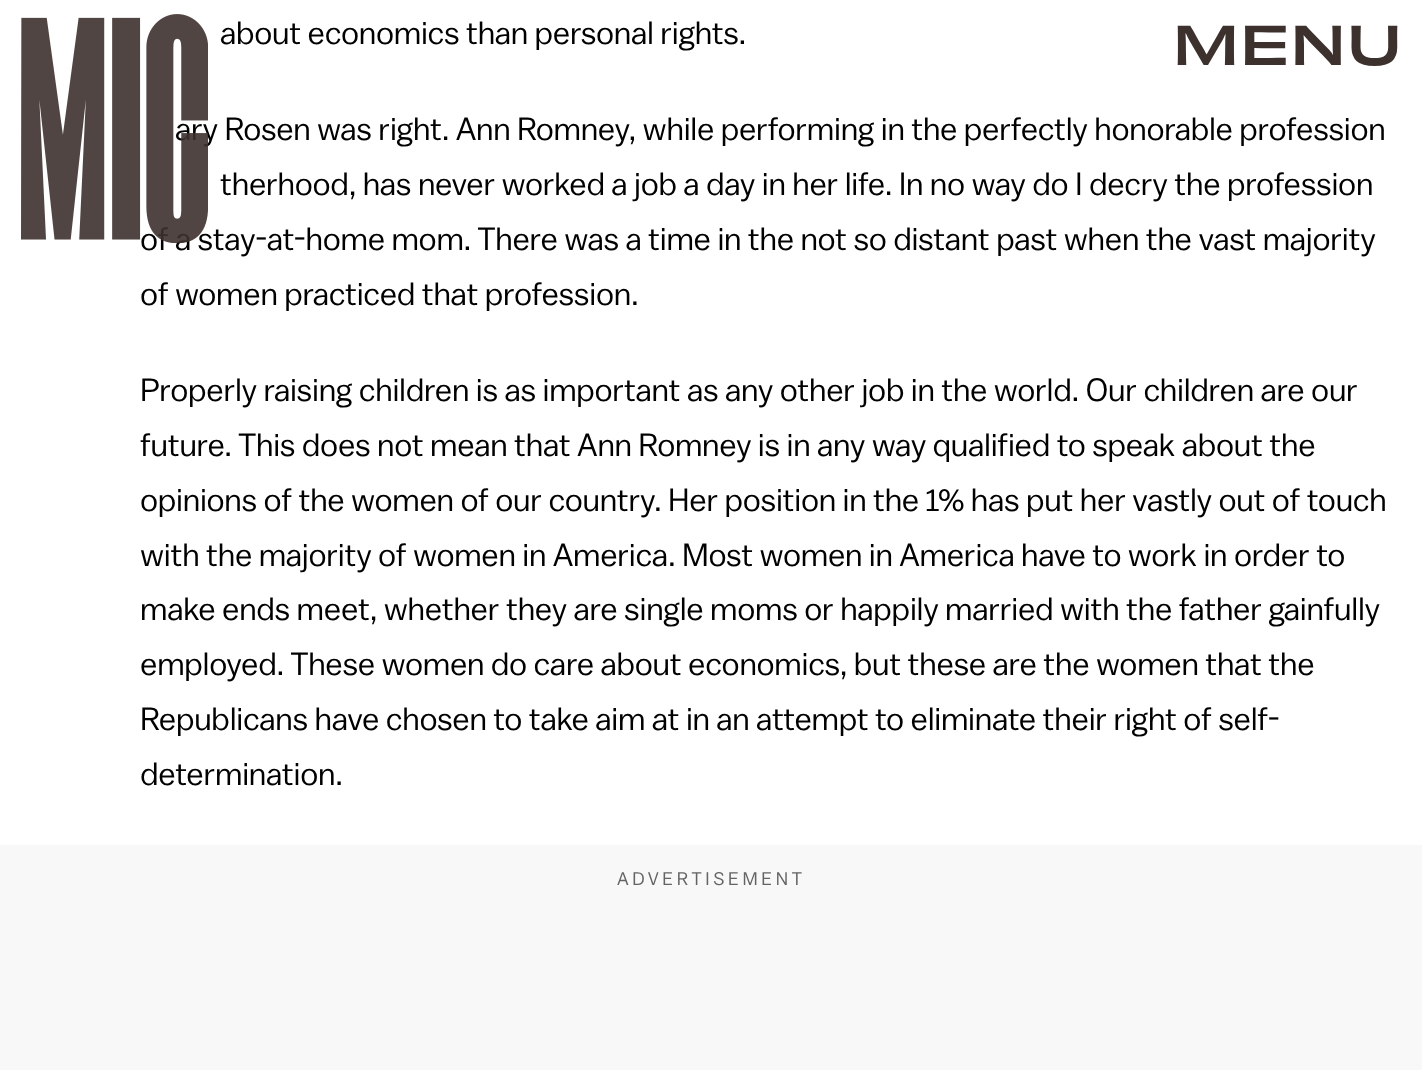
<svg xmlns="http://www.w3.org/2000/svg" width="1422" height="1070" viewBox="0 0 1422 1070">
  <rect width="100%" height="100%" fill="#fff"/>
  <path d="M0 845h1422v225H0z" fill="#f8f8f8"/>
  <g font-family="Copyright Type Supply" font-size="32.2" letter-spacing="-0.28" fill="#000">
    <text x="220" y="44">about economics than personal rights.</text>
    <text x="175" y="140">ary Rosen was right. Ann Romney, while performing in the perfectly honorable profession</text>
    <text x="220" y="195">therhood, has never worked a job a day in her life. In no way do I decry the profession</text>
    <text x="140" y="250">of a stay-at-home mom. There was a time in the not so distant past when the vast majority</text>
    <text x="140" y="305">of women practiced that profession.</text>
    <text x="140" y="401">Properly raising children is as important as any other job in the world. Our children are our</text>
    <text x="140" y="456">future. This does not mean that Ann Romney is in any way qualified to speak about the</text>
    <text x="140" y="511">opinions of the women of our country. Her position in the 1% has put her vastly out of touch</text>
    <text x="140" y="566">with the majority of women in America. Most women in America have to work in order to</text>
    <text x="140" y="620">make ends meet, whether they are single moms or happily married with the father gainfully</text>
    <text x="140" y="675">employed. These women do care about economics, but these are the women that the</text>
    <text x="140" y="730">Republicans have chosen to take aim at in an attempt to eliminate their right of self-</text>
    <text x="140" y="785">determination.</text>
  </g>
  <text x="617" y="885" font-family="Copyright Type Supply" font-size="18.25" letter-spacing="3.6" fill="#636363">ADVERTISEMENT</text>
  <image x="21" y="14" width="187" height="229" href="img/1.png"/>
  <text x="1172" y="65" font-family="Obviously" font-size="52.5" font-weight="600" letter-spacing="-0.5" fill="#3d312e">MENU</text>
</svg>
